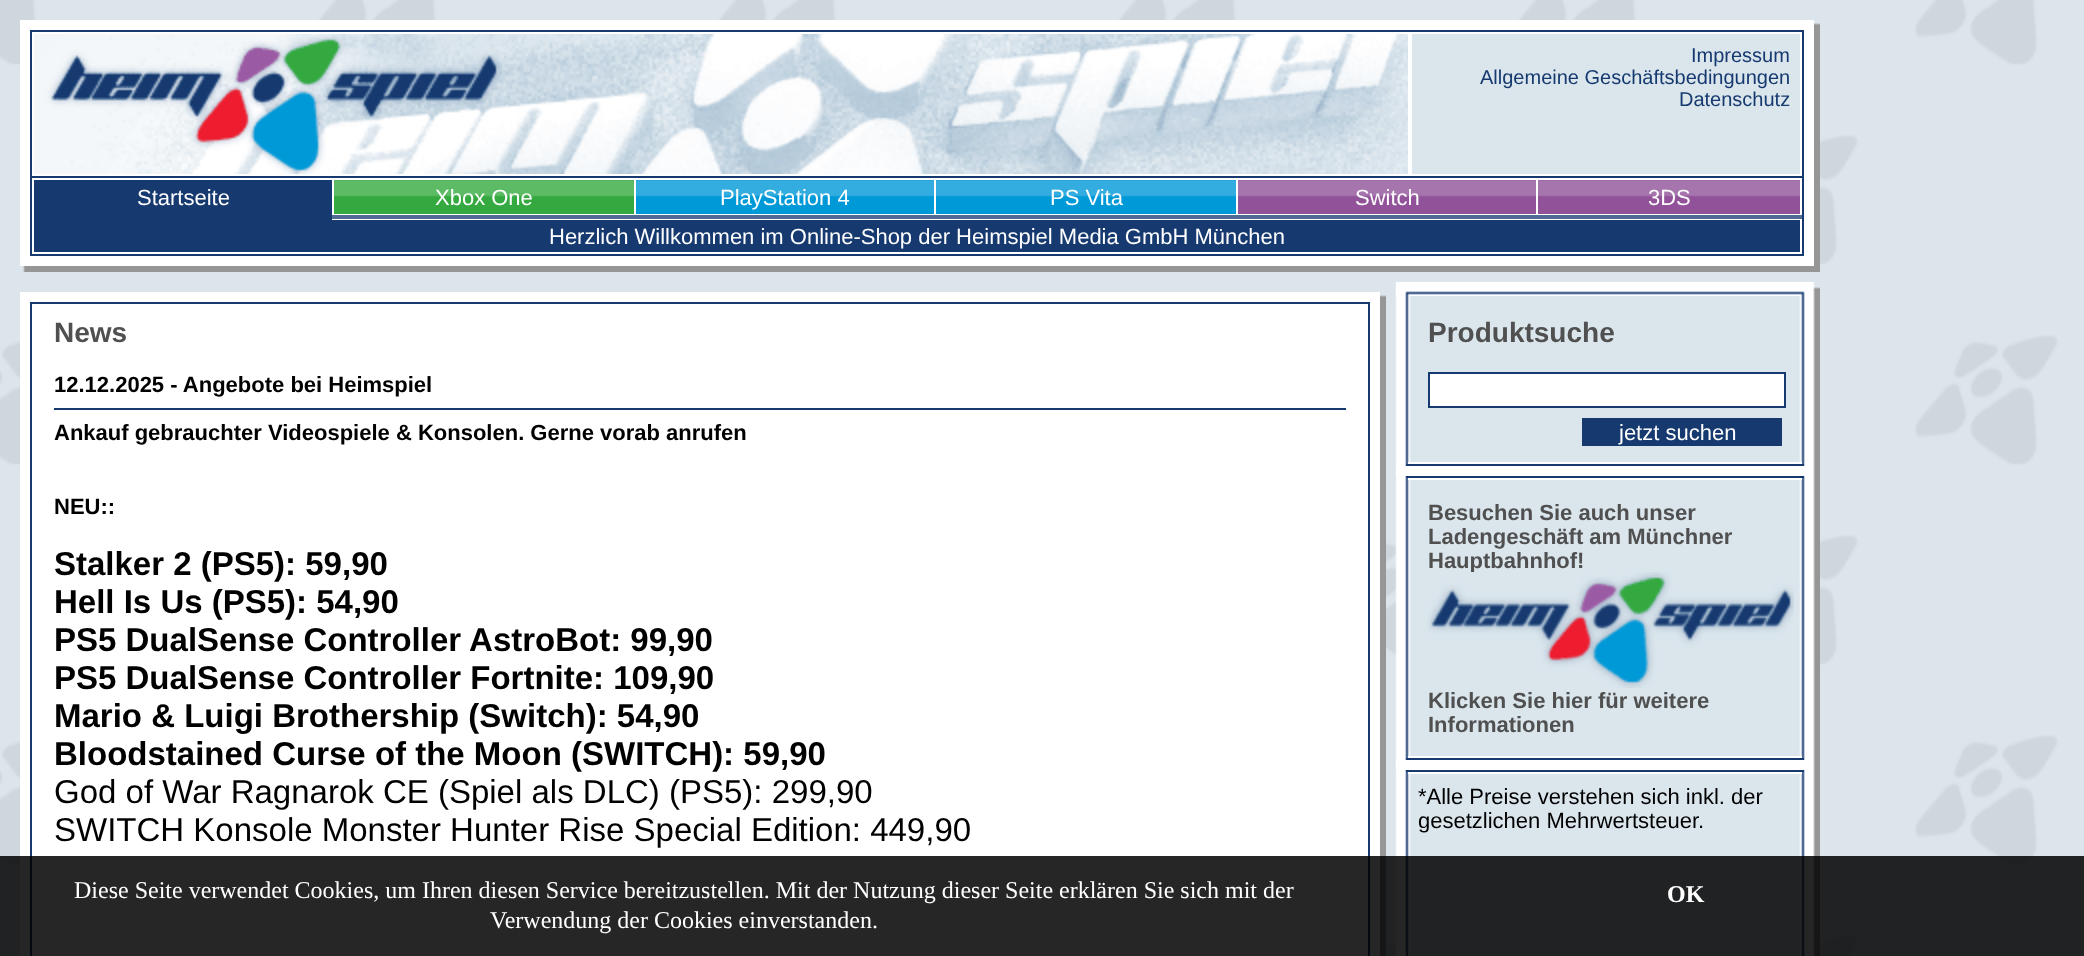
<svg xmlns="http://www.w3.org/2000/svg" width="2084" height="956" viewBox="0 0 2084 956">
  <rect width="100%" height="100%" fill="#fff"/>
  <image x="0" y="0" width="2084" height="956" href="img/1.png"/>
  <path d="M20 20h1794v246H20z" fill="#fff"/>
  <path d="M30 30h1774v2H30z" fill="#163a70"/>
  <path d="M1802 30h2v146H1802z" fill="#163a70"/>
  <path d="M30 30h2v146H30z" fill="#163a70"/>
  <image x="34" y="34" width="1374" height="140" href="img/2.png"/>
  <path d="M1412 34h388v140H1412z" fill="#dae5ec"/>
  <path d="M31 177h1772v78H31z" fill="none" stroke="#163a70" stroke-width="2"/>
  <path d="M34 180h298v34H34z" fill="#163a70"/>
  <image x="334" y="180" width="300" height="34" href="img/3.png"/>
  <image x="636" y="180" width="298" height="34" href="img/4.png"/>
  <image x="936" y="180" width="300" height="34" href="img/5.png"/>
  <image x="1238" y="180" width="298" height="34" href="img/6.png"/>
  <image x="1538" y="180" width="262" height="34" href="img/7.png"/>
  <path d="M32 214h300v6H32z" fill="#163a70"/>
  <path d="M32 214h2v6H32z" fill="#fff"/>
  <path d="M332 215h1470v4H332z" fill="#506b93"/>
  <path d="M34 220h1766v32H34z" fill="#163a70"/>
  <path d="M1814 20h6v246H1814z" fill="#969696"/>
  <image x="1814" y="20" width="6" height="5" href="img/8.png"/>
  <path d="M20 266h1800v6H20z" fill="#969696"/>
  <image x="20" y="266" width="5" height="6" href="img/9.png"/>
  <image x="1395" y="282" width="425" height="674" href="img/10.png"/>
  <path d="M1380 297h6v659H1380z" fill="#969696"/>
  <image x="1380" y="292" width="6" height="5" href="img/11.png"/>
  <path d="M20 292h1360v664H20z" fill="#fff"/>
  <path d="M31 303h1338v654H31z" fill="none" stroke="#163a70" stroke-width="2"/>
  <path d="M54 408h1292v2H54z" fill="#163a70"/>
  <image x="1396" y="282" width="424" height="14" href="img/12.png"/>
  <path d="M1406 464h398v2H1406z" fill="#163a70"/>
  <path d="M1408 462h394v2H1408z" fill="#fff"/>
  <path d="M1429 373h356v34H1429z" fill="#fff" stroke="#163a70" stroke-width="2"/>
  <path d="M1582 418h200v28H1582z" fill="#163a70"/>
  <path d="M1396 466h409v10H1396z" fill="#fff"/>
  <path d="M1406 476h398v2H1406z" fill="#163a70"/>
  <path d="M1406 758h398v2H1406z" fill="#163a70"/>
  <path d="M1408 478h394v2H1408z" fill="#fff"/>
  <path d="M1408 756h394v2H1408z" fill="#fff"/>
  <path d="M1396 760h409v10H1396z" fill="#fff"/>
  <path d="M1406 770h398v2H1406z" fill="#163a70"/>
  <path d="M1408 772h394v2H1408z" fill="#fff"/>
  <path d="M0 856h2084v100H0z" fill="#000000d9"/>
  <g font-family="Liberation Sans" font-size="20" fill="#163a70">
    <text x="1691" y="62">Impressum</text>
    <text x="1480" y="84">Allgemeine Geschäftsbedingungen</text>
    <text x="1679" y="106">Datenschutz</text>
  </g>
  <g font-family="Liberation Sans" font-size="22" fill="#fff">
    <text x="137" y="205">Startseite</text>
    <text x="435" y="205">Xbox One</text>
    <text x="720" y="205">PlayStation 4</text>
    <text x="1050" y="205">PS Vita</text>
    <text x="1355" y="205">Switch</text>
    <text x="1648" y="205">3DS</text>
    <text x="549" y="244">Herzlich Willkommen im Online-Shop der Heimspiel Media GmbH München</text>
  </g>
  <text x="54" y="342" font-family="Liberation Sans" font-size="28" font-weight="bold" fill="#505050">News</text>
  <g font-family="Liberation Sans" font-size="22" font-weight="bold" fill="#000">
    <text x="54" y="392">12.12.2025 - Angebote bei Heimspiel</text>
    <text x="54" y="440">Ankauf gebrauchter Videospiele &amp; Konsolen. Gerne vorab anrufen</text>
    <text x="54" y="514">NEU::</text>
  </g>
  <g font-family="Liberation Sans" font-size="33" font-weight="bold" fill="#000">
    <text x="54" y="575">Stalker 2 (PS5): 59,90</text>
    <text x="54" y="613">Hell Is Us (PS5): 54,90</text>
    <text x="54" y="651">PS5 DualSense Controller AstroBot: 99,90</text>
    <text x="54" y="689">PS5 DualSense Controller Fortnite: 109,90</text>
    <text x="54" y="727">Mario &amp; Luigi Brothership (Switch): 54,90</text>
    <text x="54" y="765">Bloodstained Curse of the Moon (SWITCH): 59,90</text>
  </g>
  <g font-family="Liberation Sans" font-size="33" fill="#000">
    <text x="54" y="803">God of War Ragnarok CE (Spiel als DLC) (PS5): 299,90</text>
    <text x="54" y="841">SWITCH Konsole Monster Hunter Rise Special Edition: 449,90</text>
  </g>
  <text x="1428" y="342" font-family="Liberation Sans" font-size="28" font-weight="bold" fill="#505050">Produktsuche</text>
  <text x="1619" y="440" font-family="Liberation Sans" font-size="22" fill="#fff">jetzt suchen</text>
  <g font-family="Liberation Sans" font-size="22" font-weight="bold" fill="#505050">
    <text x="1428" y="520">Besuchen Sie auch unser</text>
    <text x="1428" y="544">Ladengeschäft am Münchner</text>
    <text x="1428" y="568">Hauptbahnhof!</text>
  </g>
  <image x="1428" y="572" width="366" height="116" href="img/13.png"/>
  <g font-family="Liberation Sans" font-size="22" font-weight="bold" fill="#505050">
    <text x="1428" y="708">Klicken Sie hier für weitere</text>
    <text x="1428" y="732">Informationen</text>
  </g>
  <g font-family="Liberation Sans" font-size="22" fill="#000">
    <text x="1418" y="804">*Alle Preise verstehen sich inkl. der</text>
    <text x="1418" y="828">gesetzlichen Mehrwertsteuer.</text>
  </g>
  <text x="74" y="898" font-family="Liberation Serif" font-size="24" fill="#fff">Diese Seite verwendet Cookies, um Ihren diesen Service bereitzustellen. Mit der Nutzung dieser Seite erklären Sie sich mit der</text>
  <text x="1667" y="902" font-family="Liberation Serif" font-size="24" font-weight="bold" fill="#fff">OK</text>
  <text x="490" y="928" font-family="Liberation Serif" font-size="24" fill="#fff">Verwendung der Cookies einverstanden.</text>
</svg>
